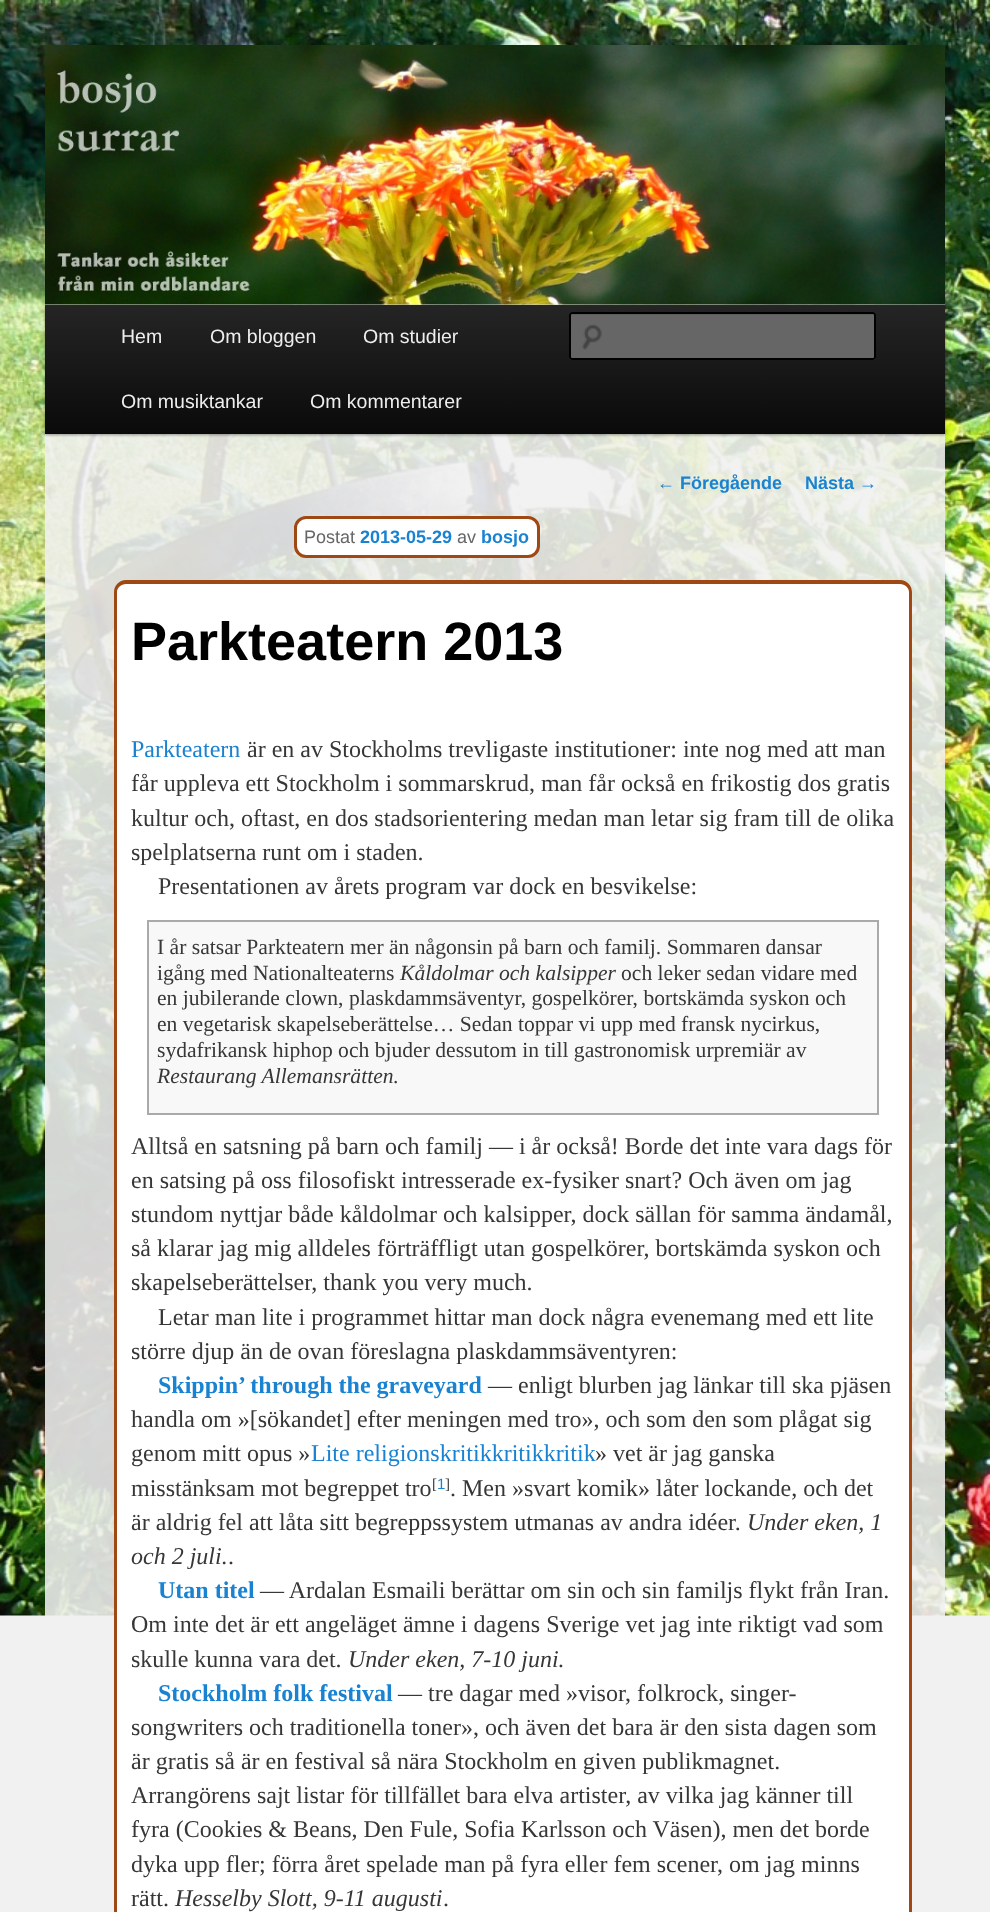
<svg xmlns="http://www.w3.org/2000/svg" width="990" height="1912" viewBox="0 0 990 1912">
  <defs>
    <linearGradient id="g1" gradientUnits="userSpaceOnUse" x1="495" y1="304" x2="495" y2="434"><stop offset="0" stop-color="#252525"/><stop offset="1" stop-color="#0a0a0a"/></linearGradient>
  </defs>
  <rect width="100%" height="100%" fill="#f1f1f1"/>
  <image x="0" y="0" width="990" height="1616" href="img/1.png"/>
  <path d="M45 304h900v1312H45z" fill="#f0f0f0e0"/>
  <path d="M45 306h900v129H45z" fill="#00000066" filter="blur(1.5px)"/>
  <image x="45" y="45" width="900" height="260" href="img/2.png"/>
  <path d="M45 305h900v129H45z" fill="url(#g1)"/>
  <rect x="569" y="312" width="307" height="48" rx="3" fill="#666"/>
  <image x="582" y="324" width="20" height="26" href="img/3.png"/>
  <path d="M572 315H873C874 315 874 316 874 316V359C875 359 875 358 875 358V316C875 315 874 314 874 314H572C571 314 570 315 570 316Z" fill="#5c5c5c"/>
  <rect x="570" y="313" width="305" height="46" rx="2" fill="none" stroke="#000" stroke-width="2"/>
  <path d="M126 581H900C906.5 581 912 586.5 912 593V695H114V593C114 586.5 119.5 581 126 581Z" fill="#fff"/>
  <path d="M126 580H900C907 580 912 586 912 592V694H114V592C114 586 119 580 126 580ZM126 584H900C905 584 909 588 909 592V694H117V592C117 588 121 584 126 584Z" fill="#a04813" fill-rule="evenodd"/>
  <rect x="295.5" y="517.5" width="243" height="39" rx="10.5" fill="#fff" stroke="#a04813" stroke-width="3"/>
  <path d="M117 695h792v1217H117z" fill="#fff"/>
  <path d="M114 694H912V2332C912 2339 907 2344 900 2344H126C119 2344 114 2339 114 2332ZM117 694H909V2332C909 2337 905 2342 900 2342H126C121 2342 117 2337 117 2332Z" fill="#a04813" fill-rule="evenodd"/>
  <path d="M148 921h730v193H148z" fill="#f8f8f8" stroke="#aaa" stroke-width="2"/>
  <g font-family="Liberation Sans" font-size="19.5" fill="#eee">
    <text x="121" y="343">Hem</text>
    <text x="210" y="343">Om bloggen</text>
    <text x="363" y="343">Om studier</text>
    <text x="121" y="408">Om musiktankar</text>
    <text x="310" y="408">Om kommentarer</text>
  </g>
  <text x="657" y="489" font-family="Liberation Sans" font-size="18" fill="#1982d1">←</text>
  <g font-family="Liberation Sans" font-size="18" font-weight="bold" fill="#1982d1">
    <text x="680" y="489">Föregående</text>
    <text x="805" y="489">Nästa</text>
  </g>
  <text x="859" y="489" font-family="Liberation Sans" font-size="18" fill="#1982d1">→</text>
  <text x="304" y="543" font-family="Liberation Sans" font-size="18" fill="#666">Postat</text>
  <text x="360" y="543" font-family="Liberation Sans" font-size="18" font-weight="bold" fill="#1982d1">2013-05-29</text>
  <text x="457" y="543" font-family="Liberation Sans" font-size="18" fill="#666">av</text>
  <text x="481" y="543" font-family="Liberation Sans" font-size="18" font-weight="bold" fill="#1982d1">bosjo</text>
  <text x="131" y="660" font-family="Liberation Sans" font-size="54" font-weight="bold" fill="#000">Parkteatern 2013</text>
  <text x="131" y="757" font-family="Liberation Serif" font-size="24" fill="#1982d1">Parkteatern</text>
  <g font-family="Liberation Serif" font-size="24" fill="#373737">
    <text x="247" y="757">är en av Stockholms trevligaste institutioner: inte nog med att man</text>
    <text x="131" y="791">får uppleva ett Stockholm i sommarskrud, man får också en frikostig dos gratis</text>
    <text x="131" y="826">kultur och, oftast, en dos stadsorientering medan man letar sig fram till de olika</text>
    <text x="131" y="860">spelplatserna runt om i staden.</text>
    <text x="158" y="894">Presentationen av årets program var dock en besvikelse:</text>
  </g>
  <g font-family="Liberation Serif" font-size="21.6" fill="#373737">
    <text x="157" y="954">I år satsar Parkteatern mer än någonsin på barn och familj. Sommaren dansar</text>
    <text x="157" y="980">igång med Nationalteaterns</text>
  </g>
  <text x="400" y="980" font-family="Liberation Serif" font-size="21.6" font-style="italic" fill="#373737">Kåldolmar och kalsipper</text>
  <g font-family="Liberation Serif" font-size="21.6" fill="#373737">
    <text x="621" y="980">och leker sedan vidare med</text>
    <text x="157" y="1005">en jubilerande clown, plaskdammsäventyr, gospelkörer, bortskämda syskon och</text>
    <text x="157" y="1031">en vegetarisk skapelseberättelse… Sedan toppar vi upp med fransk nycirkus,</text>
    <text x="157" y="1057">sydafrikansk hiphop och bjuder dessutom in till gastronomisk urpremiär av</text>
  </g>
  <text x="157" y="1083" font-family="Liberation Serif" font-size="21.6" font-style="italic" fill="#373737">Restaurang Allemansrätten</text>
  <text x="393" y="1083" font-family="Liberation Serif" font-size="21.6" fill="#373737">.</text>
  <g font-family="Liberation Serif" font-size="24" fill="#373737">
    <text x="131" y="1154">Alltså en satsning på barn och familj — i år också! Borde det inte vara dags för</text>
    <text x="131" y="1188">en satsing på oss filosofiskt intresserade ex-fysiker snart? Och även om jag</text>
    <text x="131" y="1222">stundom nyttjar både kåldolmar och kalsipper, dock sällan för samma ändamål,</text>
    <text x="131" y="1256">så klarar jag mig alldeles förträffligt utan gospelkörer, bortskämda syskon och</text>
    <text x="131" y="1290">skapelseberättelser, thank you very much.</text>
    <text x="158" y="1325">Letar man lite i programmet hittar man dock några evenemang med ett lite</text>
    <text x="131" y="1359">större djup än de ovan föreslagna plaskdammsäventyren:</text>
  </g>
  <text x="158" y="1393" font-family="Liberation Serif" font-size="24" font-weight="bold" fill="#1982d1">Skippin’ through the graveyard</text>
  <g font-family="Liberation Serif" font-size="24" fill="#373737">
    <text x="488" y="1393">— enligt blurben jag länkar till ska pjäsen</text>
    <text x="131" y="1427">handla om »[sökandet] efter meningen med tro», och som den som plågat sig</text>
    <text x="131" y="1461">genom mitt opus »</text>
  </g>
  <text x="311" y="1461" font-family="Liberation Serif" font-size="24" fill="#1982d1">Lite religionskritikkritikkritik</text>
  <g font-family="Liberation Serif" font-size="24" fill="#373737">
    <text x="595" y="1461">» vet är jag ganska</text>
    <text x="131" y="1496">misstänksam mot begreppet tro</text>
  </g>
  <text x="432" y="1489" font-family="Liberation Serif" font-size="15" fill="#373737">[</text>
  <text x="437" y="1489" font-family="Liberation Sans" font-size="15" fill="#1982d1">1</text>
  <text x="445" y="1489" font-family="Liberation Serif" font-size="15" fill="#373737">]</text>
  <g font-family="Liberation Serif" font-size="24" fill="#373737">
    <text x="450" y="1496">. Men »svart komik» låter lockande, och det</text>
    <text x="131" y="1530">är aldrig fel att låta sitt begreppssystem utmanas av andra idéer.</text>
  </g>
  <g font-family="Liberation Serif" font-size="24" font-style="italic" fill="#373737">
    <text x="747" y="1530">Under eken, 1</text>
    <text x="131" y="1564">och 2 juli.</text>
  </g>
  <text x="228" y="1564" font-family="Liberation Serif" font-size="24" fill="#373737">.</text>
  <text x="158" y="1598" font-family="Liberation Serif" font-size="24" font-weight="bold" fill="#1982d1">Utan titel</text>
  <g font-family="Liberation Serif" font-size="24" fill="#373737">
    <text x="260" y="1598">— Ardalan Esmaili berättar om sin och sin familjs flykt från Iran.</text>
    <text x="131" y="1632">Om inte det är ett angeläget ämne i dagens Sverige vet jag inte riktigt vad som</text>
    <text x="131" y="1667">skulle kunna vara det.</text>
  </g>
  <text x="348" y="1667" font-family="Liberation Serif" font-size="24" font-style="italic" fill="#373737">Under eken, 7-10 juni.</text>
  <text x="158" y="1701" font-family="Liberation Serif" font-size="24" font-weight="bold" fill="#1982d1">Stockholm folk festival</text>
  <g font-family="Liberation Serif" font-size="24" fill="#373737">
    <text x="398" y="1701">— tre dagar med »visor, folkrock, singer-</text>
    <text x="131" y="1735">songwriters och traditionella toner», och även det bara är den sista dagen som</text>
    <text x="131" y="1769">är gratis så är en festival så nära Stockholm en given publikmagnet.</text>
    <text x="131" y="1803">Arrangörens sajt listar för tillfället bara elva artister, av vilka jag känner till</text>
    <text x="131" y="1837">fyra (Cookies &amp; Beans, Den Fule, Sofia Karlsson och Väsen), men det borde</text>
    <text x="131" y="1872">dyka upp fler; förra året spelade man på fyra eller fem scener, om jag minns</text>
    <text x="131" y="1906">rätt.</text>
  </g>
  <text x="175" y="1906" font-family="Liberation Serif" font-size="24" font-style="italic" fill="#373737">Hesselby Slott, 9-11 augusti</text>
  <text x="443" y="1906" font-family="Liberation Serif" font-size="24" fill="#373737">.</text>
</svg>
